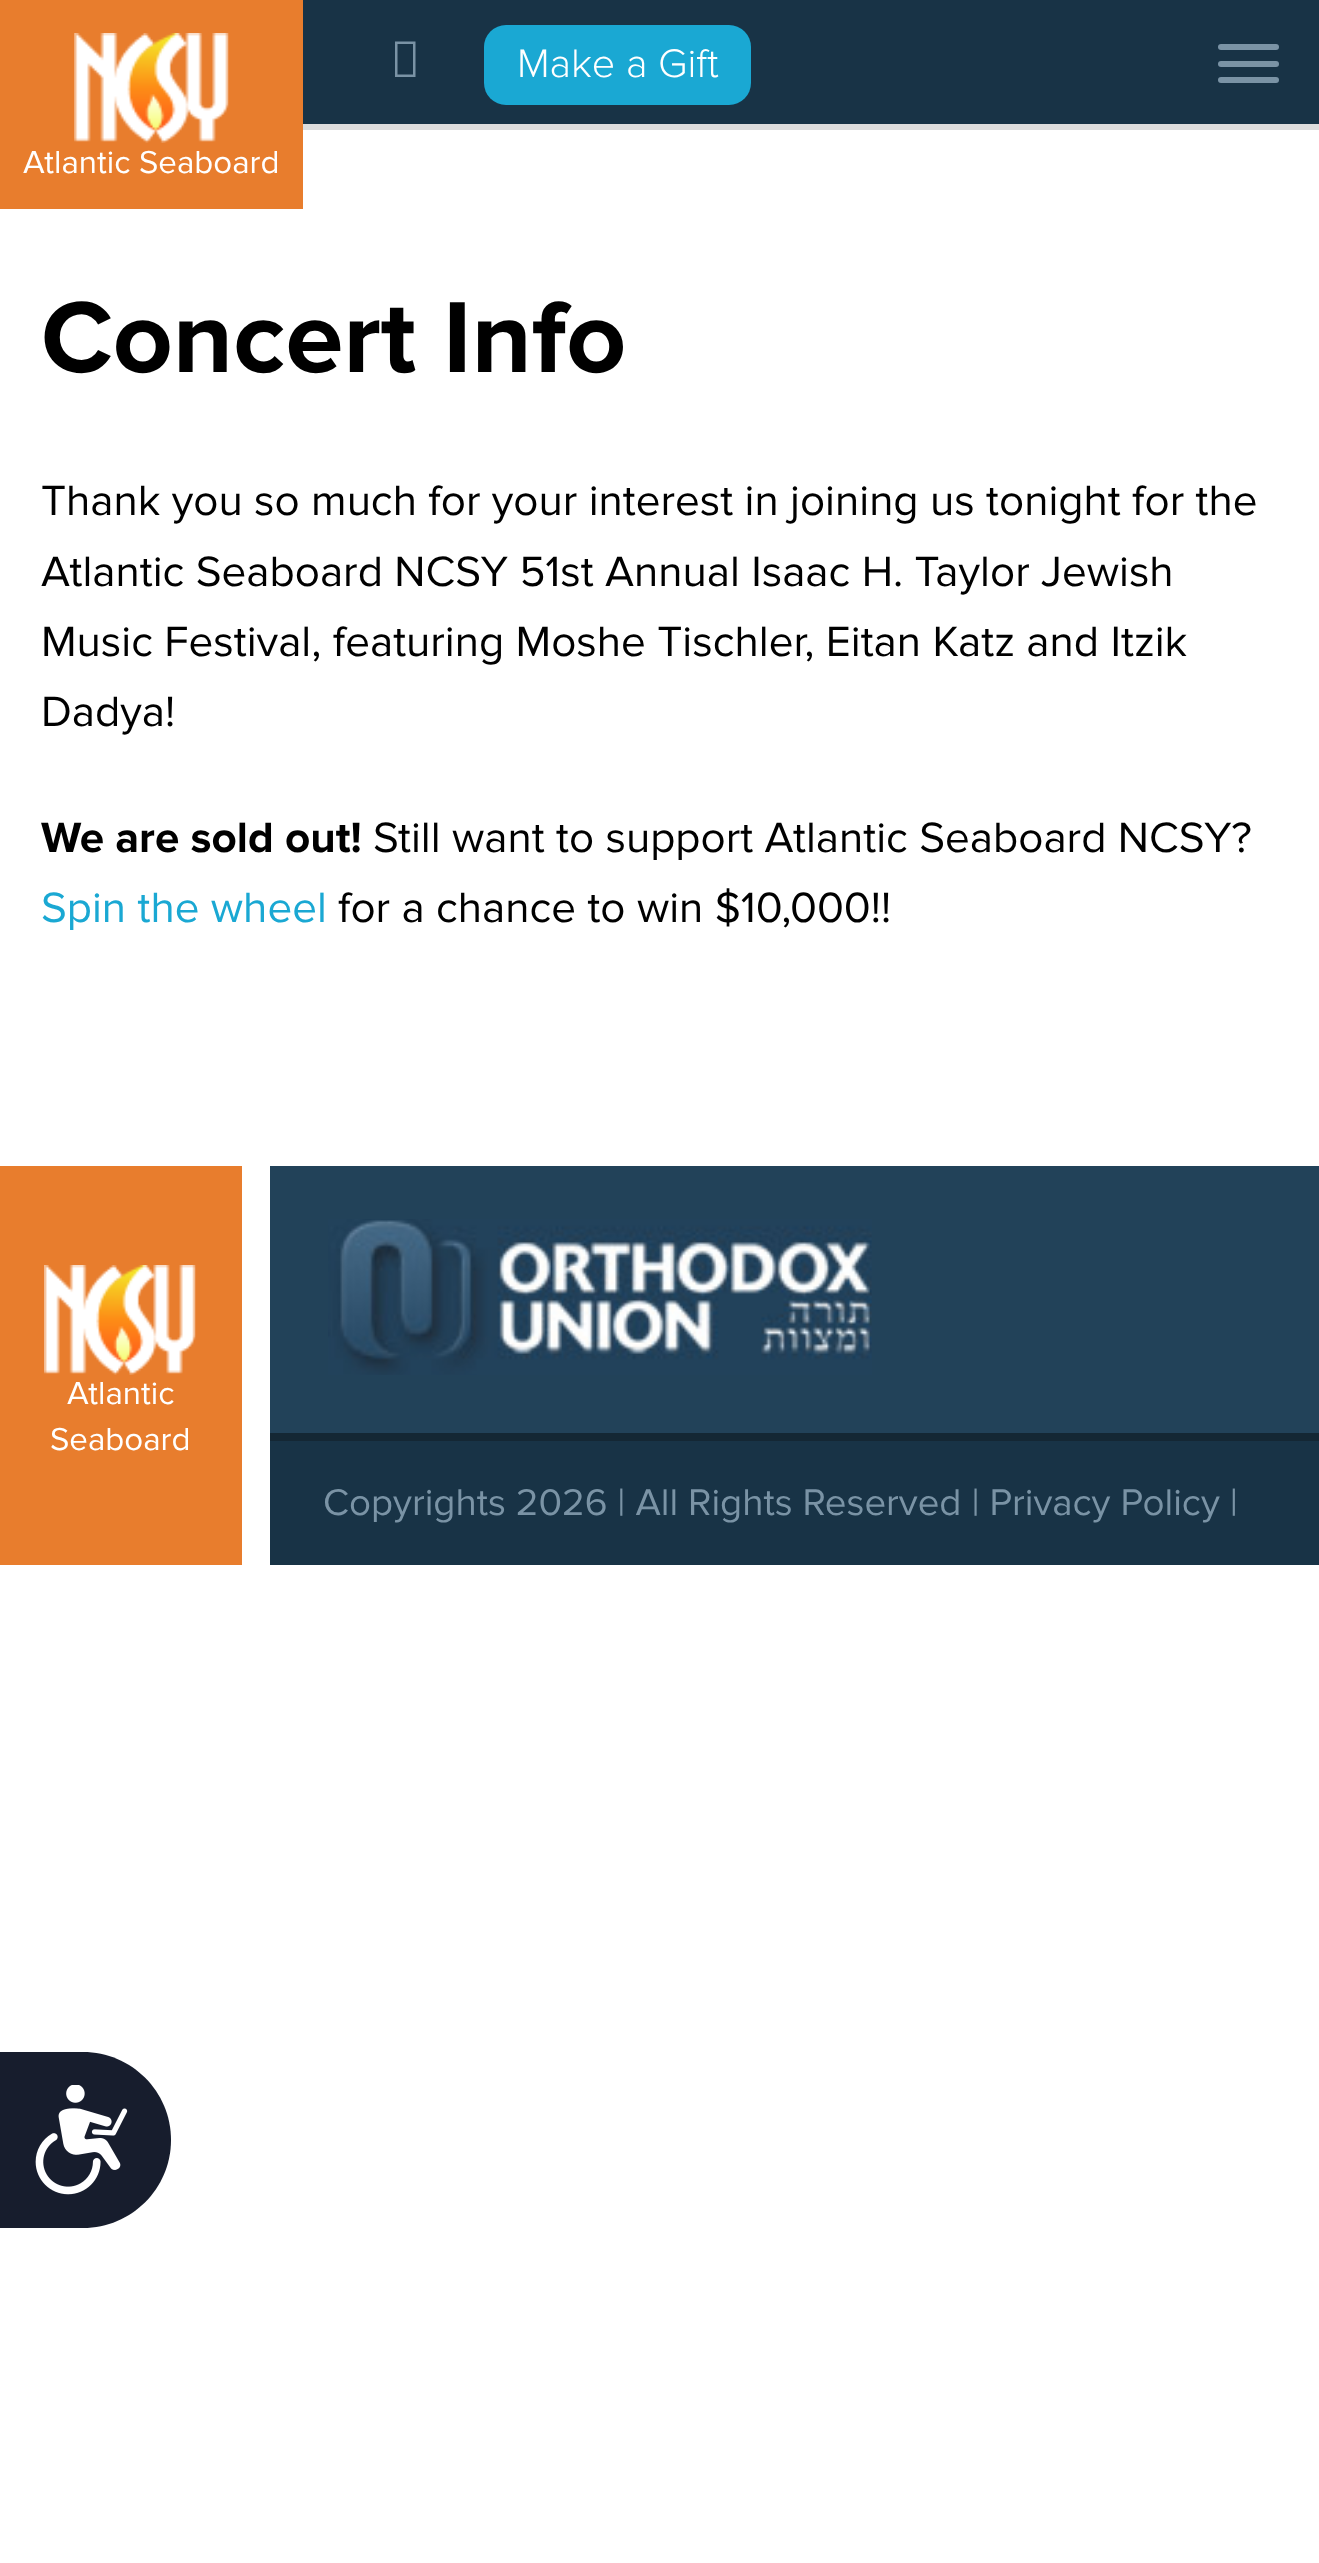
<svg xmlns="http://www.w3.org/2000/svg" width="1319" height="2563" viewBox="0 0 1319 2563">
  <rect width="100%" height="100%" fill="#fff"/>
  <path d="M303 0h1016v124H303z" fill="#183346"/>
  <path d="M395 77V41.5H415.5V77ZM397.5 74.5H413V44H397.5Z" fill="#7a93a5"/>
  <rect x="484" y="25" width="267" height="80" rx="22" fill="#1aa8d3"/>
  <rect x="1218" y="44" width="61" height="6" rx="3" fill="#7a93a5"/>
  <rect x="1218" y="61" width="61" height="6" rx="3" fill="#7a93a5"/>
  <rect x="1218" y="77" width="61" height="6" rx="3" fill="#7a93a5"/>
  <path d="M303 124h1016v6H303z" fill="#ddd"/>
  <path d="M0 0h303v209H0z" fill="#e87d2d"/>
  <image x="74" y="33" width="155" height="110" href="img/1.png"/>
  <path d="M0 1166h242v399H0z" fill="#e87d2d"/>
  <image x="44" y="1265" width="152" height="110" href="img/2.png"/>
  <path d="M270 1166h1049v267H270z" fill="#224259"/>
  <path d="M270 1433h1049v8H270z" fill="#142734"/>
  <image x="328" y="1219" width="544" height="156" href="img/3.png"/>
  <path d="M270 1441h1049v124H270z" fill="#183346"/>
  <path d="M0 2052H83C131.5 2052 171 2091.5 171 2140C171 2188.5 131.5 2228 83 2228H0Z" fill="#171d2d"/>
  <image x="35" y="2085" width="93" height="110" href="img/4.png"/>
  <text x="517" y="77" font-family="Proxima Nova" font-size="41.25" font-weight="300" fill="#fff">Make a Gift</text>
  <text x="23" y="173" font-family="Proxima Nova" font-size="33" fill="#fff">Atlantic Seaboard</text>
  <text x="41" y="372" font-family="Proxima Nova" font-size="104.5" font-weight="bold" fill="#000">Concert Info</text>
  <g font-family="Proxima Nova" font-size="44" fill="#000">
    <text x="41" y="515">Thank you so much for your interest in joining us tonight for the</text>
    <text x="41" y="586">Atlantic Seaboard NCSY 51st Annual Isaac H. Taylor Jewish</text>
    <text x="41" y="656">Music Festival, featuring Moshe Tischler, Eitan Katz and Itzik</text>
    <text x="41" y="726">Dadya!</text>
  </g>
  <text x="41" y="852" font-family="Proxima Nova" font-size="44" font-weight="bold" fill="#000">We are sold out!</text>
  <text x="373" y="852" font-family="Proxima Nova" font-size="44" fill="#000">Still want to support Atlantic Seaboard NCSY?</text>
  <text x="41" y="922" font-family="Proxima Nova" font-size="44" fill="#1aa8d3">Spin the wheel</text>
  <text x="338" y="922" font-family="Proxima Nova" font-size="44" fill="#000">for a chance to win $10,000!!</text>
  <g font-family="Proxima Nova" font-size="33" fill="#fff">
    <text x="67" y="1404">Atlantic</text>
    <text x="50" y="1450">Seaboard</text>
  </g>
  <text x="323" y="1515" font-family="Proxima Nova" font-size="38.5" fill="#7a93a5">Copyrights 2026 | All Rights Reserved | Privacy Policy |</text>
</svg>
